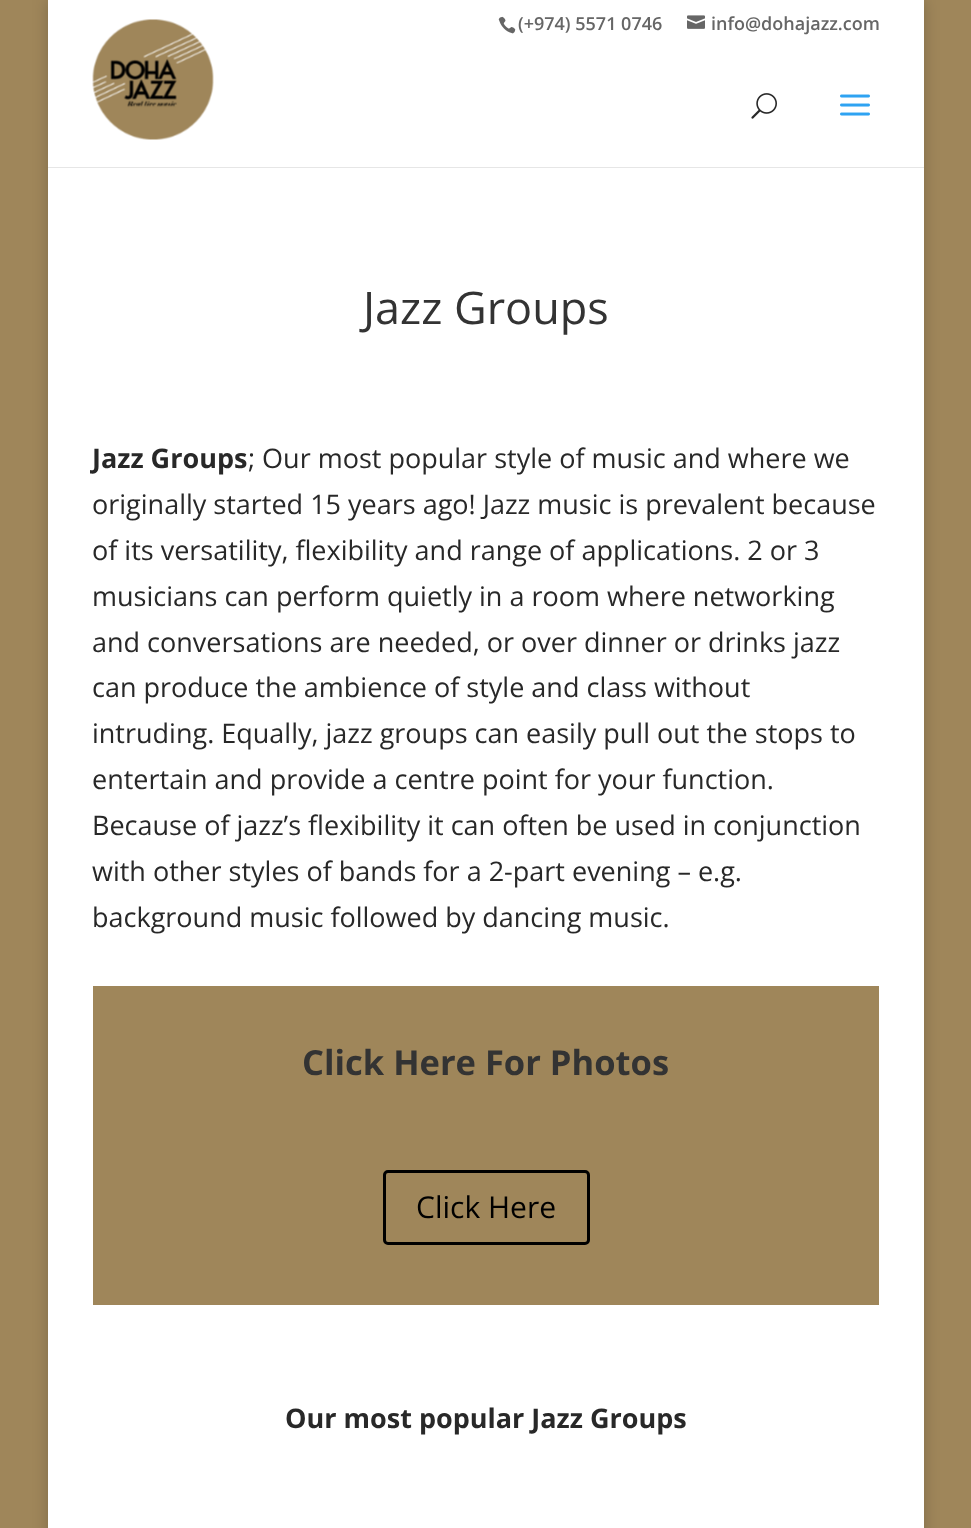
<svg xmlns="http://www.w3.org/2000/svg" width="971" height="1528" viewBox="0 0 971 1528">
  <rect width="100%" height="100%" fill="#9f865a"/>
  <path d="M48 0h876v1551H48z" fill="#00000033" filter="blur(7.5px)"/>
  <path d="M48 0h876v167H48z" fill="#fff"/>
  <image x="498" y="16" width="18" height="18" href="img/1.png"/>
  <image x="687" y="15" width="18" height="14" href="img/2.png"/>
  <path d="M48 167h876v1H48z" fill="#e6e6e6"/>
  <image x="92" y="19" width="122" height="121" href="img/3.png"/>
  <image x="751" y="93" width="26" height="26" href="img/4.png"/>
  <image x="840" y="94" width="30" height="22" href="img/5.png"/>
  <path d="M48 168h876v1360H48z" fill="#fff"/>
  <path d="M93 986h786v319H93z" fill="#9f865a"/>
  <rect x="384.5" y="1171.5" width="204" height="72" rx="3.5" fill="none" stroke="#000" stroke-width="3"/>
  <g font-family="Open Sans" font-size="18" font-weight="600" fill="#666">
    <text x="518" y="30">(+974) 5571 0746</text>
    <text x="711" y="30">info@dohajazz.com</text>
  </g>
  <text x="363" y="324" font-family="Open Sans" font-size="45" fill="#333">Jazz Groups</text>
  <text x="92" y="468" font-family="Open Sans" font-size="27" font-weight="bold" fill="#282828">Jazz Groups</text>
  <g font-family="Open Sans" font-size="27" fill="#282828">
    <text x="248" y="468">; Our most popular style of music and where we</text>
    <text x="92" y="514">originally started 15 years ago! Jazz music is prevalent because</text>
    <text x="92" y="560">of its versatility, flexibility and range of applications. 2 or 3</text>
    <text x="92" y="606">musicians can perform quietly in a room where networking</text>
    <text x="92" y="652">and conversations are needed, or over dinner or drinks jazz</text>
    <text x="92" y="697">can produce the ambience of style and class without</text>
    <text x="92" y="743">intruding. Equally, jazz groups can easily pull out the stops to</text>
    <text x="92" y="789">entertain and provide a centre point for your function.</text>
    <text x="92" y="835">Because of jazz’s flexibility it can often be used in conjunction</text>
    <text x="92" y="881">with other styles of bands for a 2-part evening – e.g.</text>
    <text x="92" y="927">background music followed by dancing music.</text>
  </g>
  <text x="302" y="1075" font-family="Open Sans" font-size="34.5" font-weight="bold" fill="#333">Click Here For Photos</text>
  <text x="416" y="1218" font-family="Open Sans" font-size="30" fill="#000">Click Here</text>
  <text x="285" y="1428" font-family="Open Sans" font-size="27" font-weight="bold" fill="#282828">Our most popular Jazz Groups</text>
</svg>
